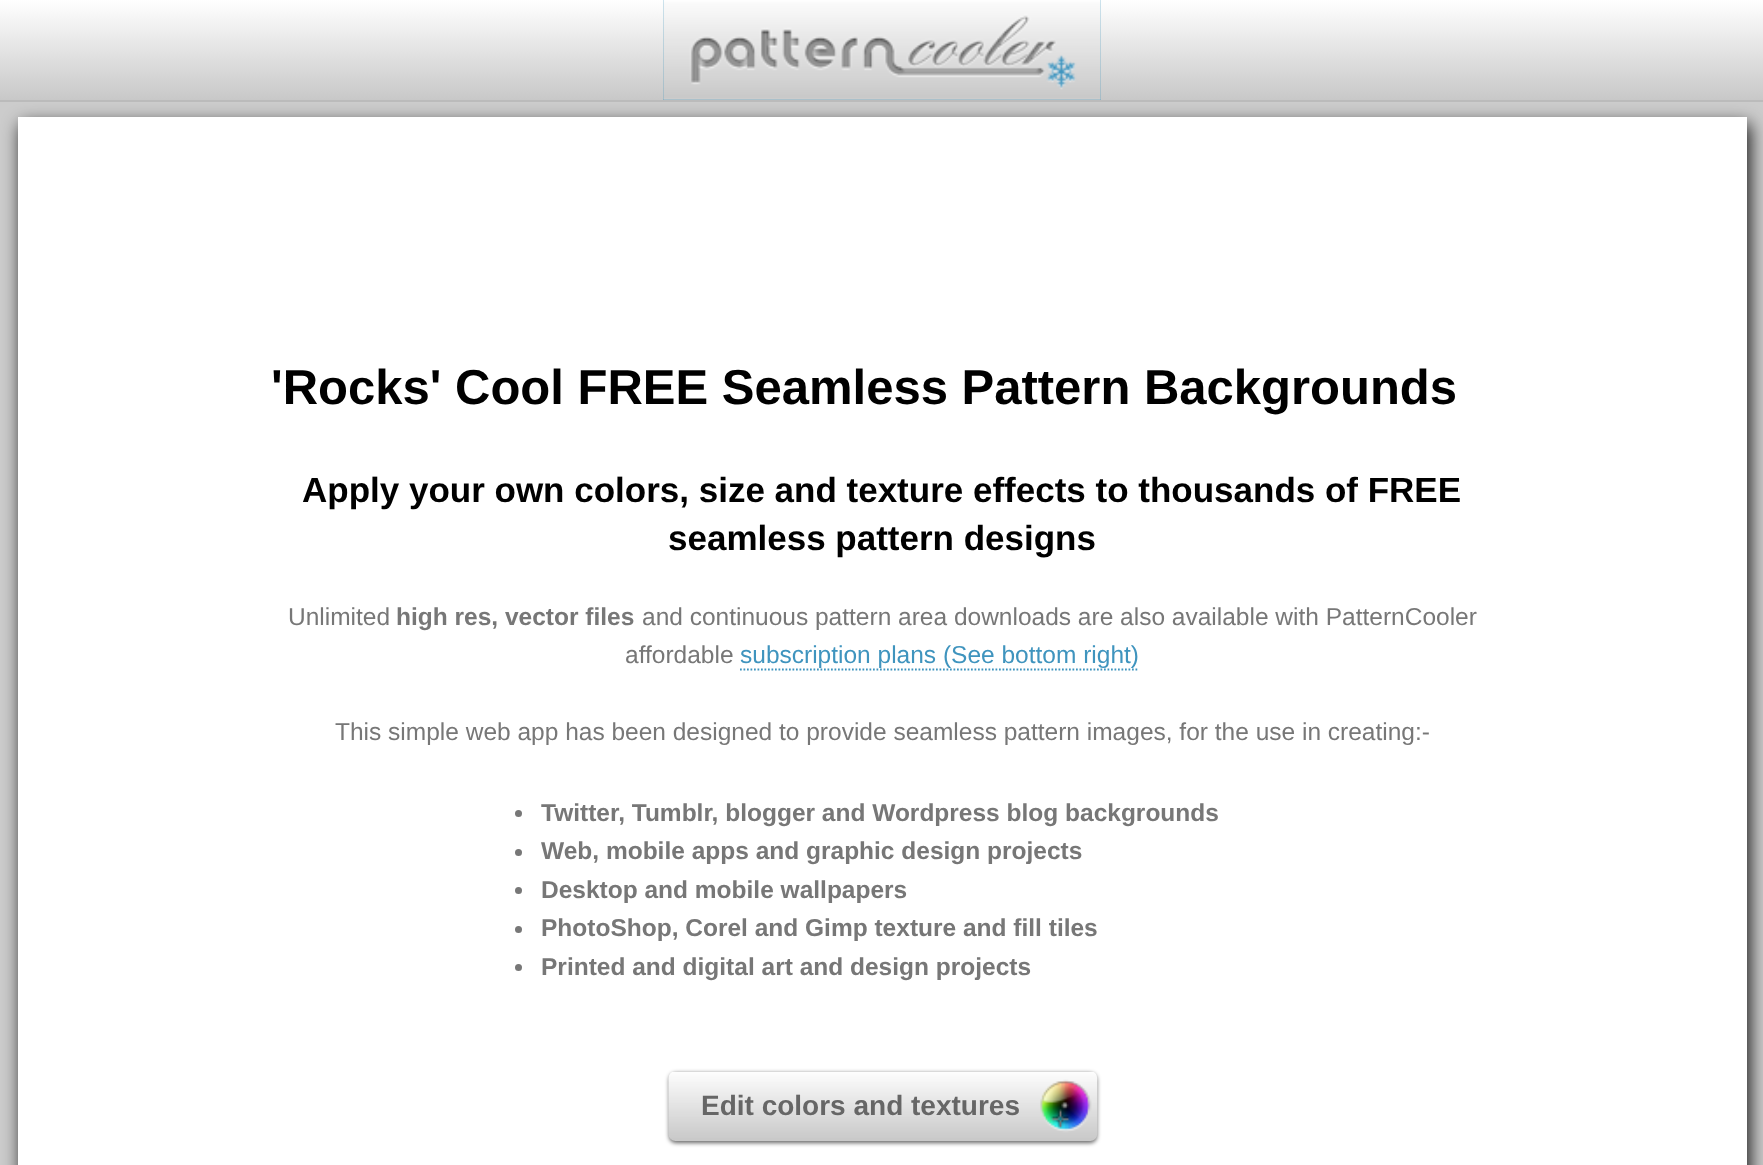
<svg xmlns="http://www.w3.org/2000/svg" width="1763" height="1165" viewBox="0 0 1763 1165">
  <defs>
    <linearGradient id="g1" gradientUnits="userSpaceOnUse" x1="882" y1="0" x2="882" y2="100"><stop offset="0" stop-color="#fff"/><stop offset="1" stop-color="#c8c8c8"/></linearGradient>
  </defs>
  <rect width="100%" height="100%" fill="#ccc"/>
  <path d="M21 124h1729v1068H21z" fill="#000000e6" filter="blur(9px)"/>
  <path d="M0 0h1763v100H0z" fill="url(#g1)"/>
  <path d="M0 100h1763v2H0z" fill="#bbb"/>
  <path d="M663 0h438v100H663z" fill="#3f94be"/>
  <image x="663" y="0" width="438" height="100" href="img/1.png"/>
  <path d="M18 117h1729v1048H18z" fill="#fff"/>
  <path d="M740 669.5H1139" fill="none" stroke="#3f94be" stroke-width="1.8" stroke-dasharray="1.75 1.75"/>
  <circle cx="518.5" cy="813.5" r="3.5" fill="#777"/>
  <circle cx="518.5" cy="852.5" r="3.5" fill="#777"/>
  <circle cx="518.5" cy="890.5" r="3.5" fill="#777"/>
  <circle cx="518.5" cy="929.5" r="3.5" fill="#777"/>
  <circle cx="518.5" cy="967.5" r="3.5" fill="#777"/>
  <rect x="669" y="1073" width="428" height="70" rx="7" fill="#00000099" filter="blur(2px)"/>
  <image x="668" y="1072" width="430" height="69" href="img/2.png"/>
  <text x="271" y="404" font-family="Liberation Sans" font-size="49" font-weight="bold" fill="#000">'Rocks' Cool FREE Seamless Pattern Backgrounds</text>
  <g font-family="Liberation Sans" font-size="35" font-weight="bold" fill="#000">
    <text x="302" y="502">Apply your own colors, size and texture effects to thousands of FREE</text>
    <text x="668" y="550">seamless pattern designs</text>
  </g>
  <text x="288" y="625" font-family="Liberation Sans" font-size="24.5" fill="#777">Unlimited</text>
  <text x="396" y="625" font-family="Liberation Sans" font-size="24.5" font-weight="bold" fill="#777">high res, vector files</text>
  <g font-family="Liberation Sans" font-size="24.5" fill="#777">
    <text x="642" y="625">and continuous pattern area downloads are also available with PatternCooler</text>
    <text x="625" y="663">affordable</text>
  </g>
  <text x="740" y="663" font-family="Liberation Sans" font-size="24.5" fill="#3f94be">subscription plans (See bottom right)</text>
  <text x="335" y="740" font-family="Liberation Sans" font-size="24.5" fill="#777">This simple web app has been designed to provide seamless pattern images, for the use in creating:-</text>
  <g font-family="Liberation Sans" font-size="24.5" font-weight="bold" fill="#777">
    <text x="541" y="821">Twitter, Tumblr, blogger and Wordpress blog backgrounds</text>
    <text x="541" y="859">Web, mobile apps and graphic design projects</text>
    <text x="541" y="898">Desktop and mobile wallpapers</text>
    <text x="541" y="936">PhotoShop, Corel and Gimp texture and fill tiles</text>
    <text x="541" y="975">Printed and digital art and design projects</text>
  </g>
  <text x="701" y="1115" font-family="Liberation Sans" font-size="28" font-weight="bold" fill="#666">Edit colors and textures</text>
</svg>
